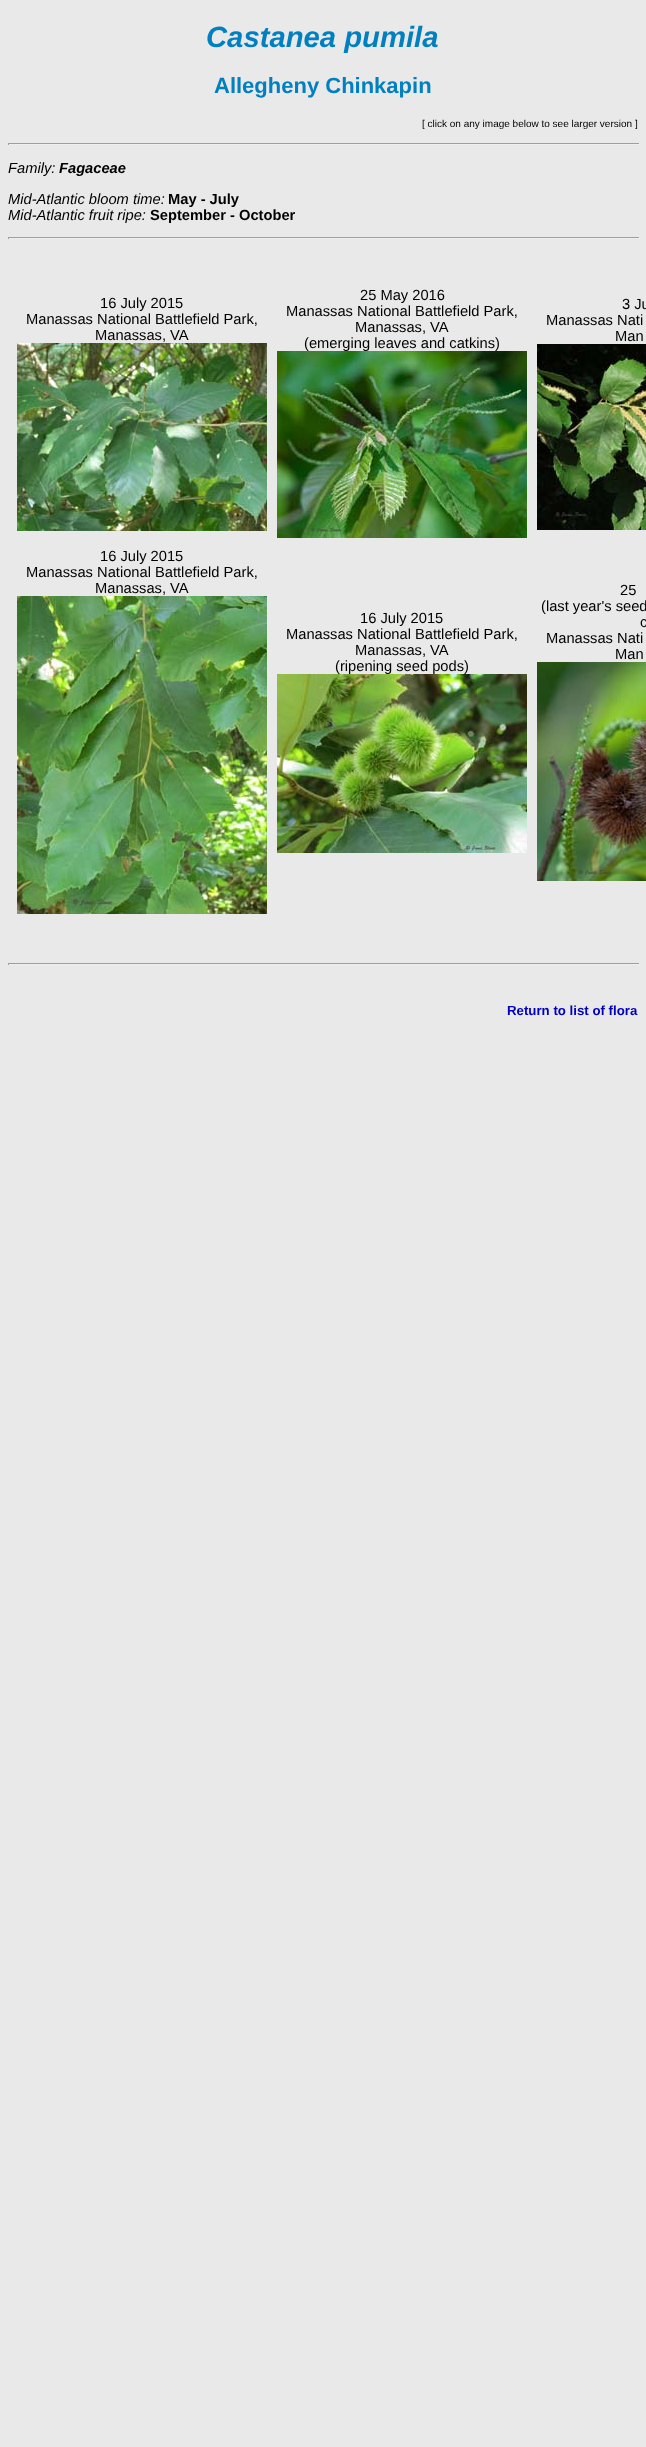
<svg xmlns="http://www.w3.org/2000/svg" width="646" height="2447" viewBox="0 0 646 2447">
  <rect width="100%" height="100%" fill="#e9e9e9"/>
  <path d="M8 143h632v1H8z" fill="#9f9f9f"/>
  <path d="M639 143h1v2H639z" fill="#eee"/>
  <path d="M8 144h632v1H8z" fill="#eee"/>
  <path d="M8 143h1v2H8z" fill="#9f9f9f"/>
  <path d="M8 237h632v1H8z" fill="#9f9f9f"/>
  <path d="M639 237h1v2H639z" fill="#eee"/>
  <path d="M8 238h632v1H8z" fill="#eee"/>
  <path d="M8 237h1v2H8z" fill="#9f9f9f"/>
  <image x="17" y="343" width="250" height="188" href="img/1.png"/>
  <image x="537" y="344" width="109" height="186" href="img/3.png"/>
  <image x="17" y="596" width="250" height="318" href="img/4.png"/>
  <image x="537" y="662" width="109" height="219" href="img/6.png"/>
  <path d="M8 963h632v1H8z" fill="#9f9f9f"/>
  <path d="M639 963h1v2H639z" fill="#eee"/>
  <path d="M8 964h632v1H8z" fill="#eee"/>
  <path d="M8 963h1v2H8z" fill="#9f9f9f"/>
  <text x="206" y="47" font-family="Liberation Sans" font-size="29.25" font-weight="bold" font-style="italic" fill="#0080c0">Castanea pumila</text>
  <text x="214" y="93" font-family="Liberation Sans" font-size="22" font-weight="bold" fill="#0080c0">Allegheny Chinkapin</text>
  <text x="422" y="127" font-family="Liberation Sans" font-size="10" fill="#000">[ click on any image below to see larger version ]</text>
  <text x="8" y="173" font-family="Liberation Sans" font-size="14.7" font-style="italic" fill="#000">Family:</text>
  <text x="59" y="173" font-family="Liberation Sans" font-size="14.7" font-weight="bold" font-style="italic" fill="#000">Fagaceae</text>
  <text x="8" y="204" font-family="Liberation Sans" font-size="14.7" font-style="italic" fill="#000">Mid-Atlantic bloom time:</text>
  <text x="168" y="204" font-family="Liberation Sans" font-size="14.7" font-weight="bold" fill="#000">May - July</text>
  <text x="8" y="220" font-family="Liberation Sans" font-size="14.7" font-style="italic" fill="#000">Mid-Atlantic fruit ripe:</text>
  <text x="150" y="220" font-family="Liberation Sans" font-size="14.7" font-weight="bold" fill="#000">September - October</text>
  <g font-family="Liberation Sans" font-size="14.7" fill="#000">
    <text x="100" y="308">16 July 2015</text>
    <text x="26" y="324">Manassas National Battlefield Park,</text>
    <text x="95" y="340">Manassas, VA</text>
    <text x="360" y="300">25 May 2016</text>
    <text x="286" y="316">Manassas National Battlefield Park,</text>
    <text x="355" y="332">Manassas, VA</text>
    <text x="304" y="348">(emerging leaves and catkins)</text>
  </g>
  <image x="277" y="351" width="250" height="187" href="img/2.png"/>
  <g font-family="Liberation Sans" font-size="14.7" fill="#000">
    <text x="622" y="309">3 Ju</text>
    <text x="546" y="325">Manassas Nati</text>
    <text x="615" y="341">Man</text>
    <text x="100" y="561">16 July 2015</text>
    <text x="26" y="577">Manassas National Battlefield Park,</text>
    <text x="95" y="593">Manassas, VA</text>
    <text x="360" y="623">16 July 2015</text>
    <text x="286" y="639">Manassas National Battlefield Park,</text>
    <text x="355" y="655">Manassas, VA</text>
    <text x="335" y="671">(ripening seed pods)</text>
  </g>
  <image x="277" y="674" width="250" height="179" href="img/5.png"/>
  <g font-family="Liberation Sans" font-size="14.7" fill="#000">
    <text x="620" y="595">25</text>
    <text x="541" y="611">(last year's seed</text>
    <text x="640" y="627">c</text>
    <text x="546" y="643">Manassas Nati</text>
    <text x="615" y="659">Man</text>
  </g>
  <text x="507" y="1015" font-family="Liberation Sans" font-size="13.25" font-weight="bold" fill="#0000c0">Return to list of flora</text>
</svg>
